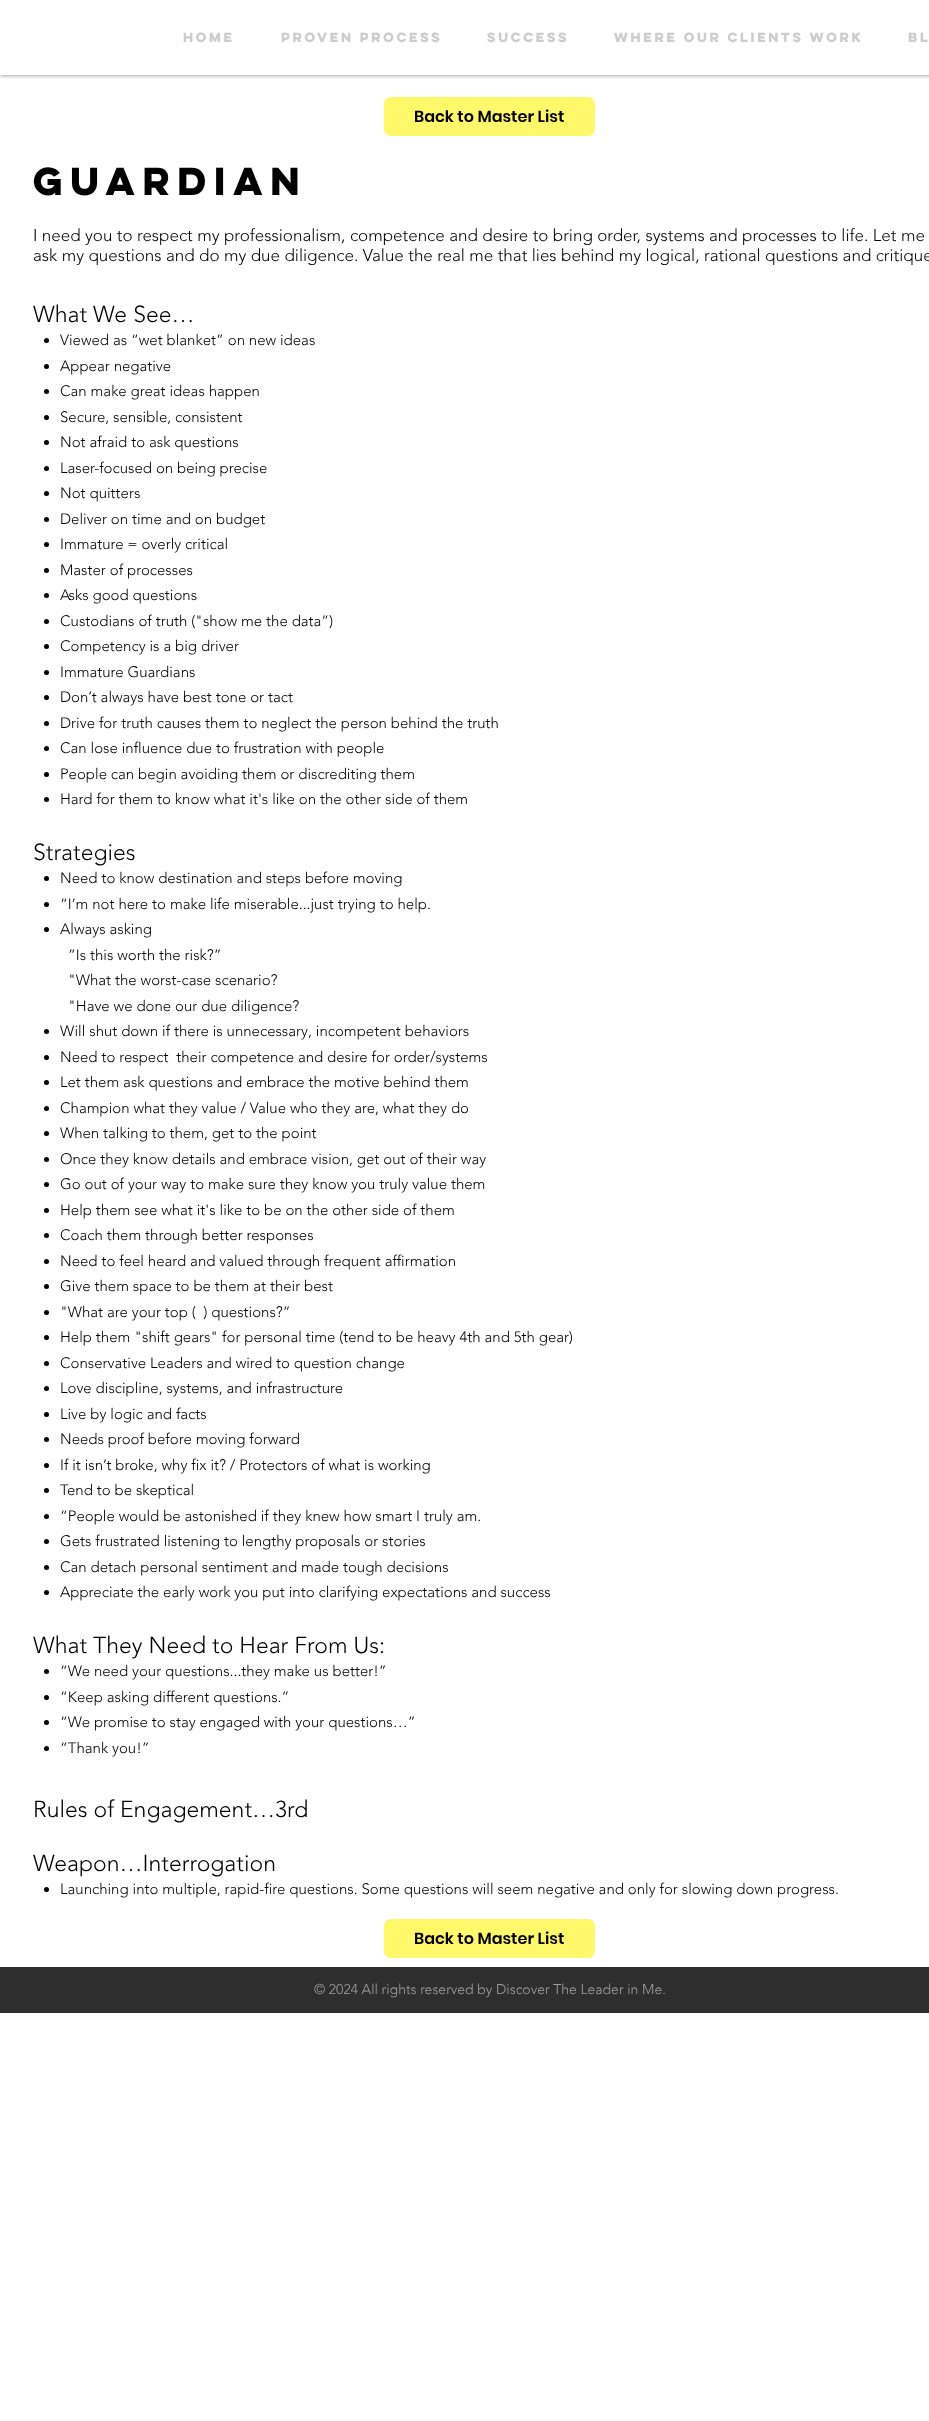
<svg xmlns="http://www.w3.org/2000/svg" width="929" height="2421" viewBox="0 0 929 2421">
  <defs>
    <clipPath id="clip1"><path d="M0 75h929v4H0z"/></clipPath>
  </defs>
  <rect width="100%" height="100%" fill="#fff"/>
  <g clip-path="url(#clip1)">
    <path d="M0 0h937v75H0z" fill="#00000080" filter="blur(2.5px)"/>
  </g>
  <rect x="384" y="97" width="211" height="39" rx="7" fill="#fff86b"/>
  <circle cx="46.5" cy="340.5" r="2.5" fill="#000"/>
  <circle cx="46.5" cy="366.5" r="2.5" fill="#000"/>
  <circle cx="46.5" cy="391.5" r="2.5" fill="#000"/>
  <circle cx="46.5" cy="417.5" r="2.5" fill="#000"/>
  <circle cx="46.5" cy="442.5" r="2.5" fill="#000"/>
  <circle cx="46.5" cy="468.5" r="2.5" fill="#000"/>
  <circle cx="46.5" cy="493.5" r="2.5" fill="#000"/>
  <circle cx="46.5" cy="519.5" r="2.5" fill="#000"/>
  <circle cx="46.5" cy="544.5" r="2.5" fill="#000"/>
  <circle cx="46.5" cy="570.5" r="2.5" fill="#000"/>
  <circle cx="46.5" cy="595.5" r="2.5" fill="#000"/>
  <circle cx="46.5" cy="621.5" r="2.5" fill="#000"/>
  <circle cx="46.5" cy="646.5" r="2.5" fill="#000"/>
  <circle cx="46.5" cy="672.5" r="2.5" fill="#000"/>
  <circle cx="46.5" cy="697.5" r="2.5" fill="#000"/>
  <circle cx="46.5" cy="723.5" r="2.5" fill="#000"/>
  <circle cx="46.5" cy="748.5" r="2.5" fill="#000"/>
  <circle cx="46.5" cy="774.5" r="2.5" fill="#000"/>
  <circle cx="46.5" cy="799.5" r="2.5" fill="#000"/>
  <circle cx="46.5" cy="878.5" r="2.5" fill="#000"/>
  <circle cx="46.5" cy="904.5" r="2.5" fill="#000"/>
  <circle cx="46.5" cy="929.5" r="2.5" fill="#000"/>
  <circle cx="46.5" cy="1031.5" r="2.5" fill="#000"/>
  <circle cx="46.5" cy="1057.5" r="2.5" fill="#000"/>
  <circle cx="46.5" cy="1082.5" r="2.5" fill="#000"/>
  <circle cx="46.5" cy="1108.5" r="2.5" fill="#000"/>
  <circle cx="46.5" cy="1133.5" r="2.5" fill="#000"/>
  <circle cx="46.5" cy="1159.5" r="2.5" fill="#000"/>
  <circle cx="46.5" cy="1184.5" r="2.5" fill="#000"/>
  <circle cx="46.5" cy="1210.5" r="2.5" fill="#000"/>
  <circle cx="46.5" cy="1235.5" r="2.5" fill="#000"/>
  <circle cx="46.5" cy="1261.5" r="2.5" fill="#000"/>
  <circle cx="46.5" cy="1286.5" r="2.5" fill="#000"/>
  <circle cx="46.5" cy="1312.5" r="2.5" fill="#000"/>
  <circle cx="46.5" cy="1337.5" r="2.5" fill="#000"/>
  <circle cx="46.5" cy="1363.5" r="2.5" fill="#000"/>
  <circle cx="46.5" cy="1388.5" r="2.5" fill="#000"/>
  <circle cx="46.5" cy="1414.5" r="2.5" fill="#000"/>
  <circle cx="46.5" cy="1439.5" r="2.5" fill="#000"/>
  <circle cx="46.5" cy="1465.5" r="2.5" fill="#000"/>
  <circle cx="46.5" cy="1490.5" r="2.5" fill="#000"/>
  <circle cx="46.5" cy="1516.5" r="2.5" fill="#000"/>
  <circle cx="46.5" cy="1541.5" r="2.5" fill="#000"/>
  <circle cx="46.5" cy="1567.5" r="2.5" fill="#000"/>
  <circle cx="46.5" cy="1592.5" r="2.5" fill="#000"/>
  <circle cx="46.5" cy="1671.5" r="2.5" fill="#000"/>
  <circle cx="46.5" cy="1697.5" r="2.5" fill="#000"/>
  <circle cx="46.5" cy="1722.5" r="2.5" fill="#000"/>
  <circle cx="46.5" cy="1748.5" r="2.5" fill="#000"/>
  <circle cx="46.5" cy="1889.5" r="2.5" fill="#000"/>
  <rect x="384" y="1919" width="211" height="39" rx="7" fill="#fff86b"/>
  <path d="M0 1967h929v46H0z" fill="#2f2e2e"/>
  <g font-family="'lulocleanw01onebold'" font-size="12" font-weight="bold" fill="#ccc">
    <text x="183" y="42">Home</text>
    <text x="281" y="42">Proven Process</text>
    <text x="487" y="42">Success</text>
    <text x="614" y="42">Where Our Clients Work</text>
    <text x="908" y="42">BL</text>
  </g>
  <text x="414" y="122" font-family="Poppins" font-size="16" font-weight="600" fill="#000">Back to Master List</text>
  <text x="33" y="195" font-family="'lulocleanw01onebold'" font-size="35" font-weight="bold" fill="#000">Guardian</text>
  <g font-family="'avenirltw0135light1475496'" font-size="17" font-weight="300" fill="#000">
    <text x="33" y="241">I need you to respect my professionalism, competence and desire to bring order, systems and processes to life. Let me</text>
    <text x="33" y="261">ask my questions and do my due diligence. Value the real me that lies behind my logical, rational questions and critique</text>
  </g>
  <text x="33" y="322" font-family="'avenirltw0135light1475496'" font-size="23" font-weight="300" fill="#000">What We See…</text>
  <g font-family="'avenirltw0135light1475496'" font-size="15" font-weight="300" fill="#000">
    <text x="60" y="345">Viewed as “wet blanket” on new ideas</text>
    <text x="60" y="371">Appear negative</text>
    <text x="60" y="396">Can make great ideas happen</text>
    <text x="60" y="422">Secure, sensible, consistent</text>
    <text x="60" y="447">Not afraid to ask questions</text>
    <text x="60" y="473">Laser-focused on being precise</text>
    <text x="60" y="498">Not quitters</text>
    <text x="60" y="524">Deliver on time and on budget</text>
    <text x="60" y="549">Immature = overly critical</text>
    <text x="60" y="575">Master of processes</text>
    <text x="60" y="600">Asks good questions</text>
    <text x="60" y="626">Custodians of truth ("show me the data”)</text>
    <text x="60" y="651">Competency is a big driver</text>
    <text x="60" y="677">Immature Guardians</text>
    <text x="60" y="702">Don’t always have best tone or tact</text>
    <text x="60" y="728">Drive for truth causes them to neglect the person behind the truth</text>
    <text x="60" y="753">Can lose influence due to frustration with people</text>
    <text x="60" y="779">People can begin avoiding them or discrediting them</text>
    <text x="60" y="804">Hard for them to know what it's like on the other side of them</text>
  </g>
  <text x="33" y="860" font-family="'avenirltw0135light1475496'" font-size="23" font-weight="300" fill="#000">Strategies</text>
  <g font-family="'avenirltw0135light1475496'" font-size="15" font-weight="300" fill="#000">
    <text x="60" y="883">Need to know destination and steps before moving</text>
    <text x="60" y="909">“I’m not here to make life miserable...just trying to help.</text>
    <text x="60" y="934">Always asking</text>
    <text x="68" y="960">”Is this worth the risk?”</text>
    <text x="68" y="985">"What the worst-case scenario?</text>
    <text x="68" y="1011">"Have we done our due diligence?</text>
    <text x="60" y="1036">Will shut down if there is unnecessary, incompetent behaviors</text>
    <text x="60" y="1062" xml:space="preserve">Need to respect  their competence and desire for order/systems</text>
    <text x="60" y="1087">Let them ask questions and embrace the motive behind them</text>
    <text x="60" y="1113">Champion what they value / Value who they are, what they do</text>
    <text x="60" y="1138">When talking to them, get to the point</text>
    <text x="60" y="1164">Once they know details and embrace vision, get out of their way</text>
    <text x="60" y="1189">Go out of your way to make sure they know you truly value them</text>
    <text x="60" y="1215">Help them see what it's like to be on the other side of them</text>
    <text x="60" y="1240">Coach them through better responses</text>
    <text x="60" y="1266">Need to feel heard and valued through frequent affirmation</text>
    <text x="60" y="1291">Give them space to be them at their best</text>
    <text x="60" y="1317" xml:space="preserve">"What are your top (  ) questions?”</text>
    <text x="60" y="1342">Help them "shift gears" for personal time (tend to be heavy 4th and 5th gear)</text>
    <text x="60" y="1368">Conservative Leaders and wired to question change</text>
    <text x="60" y="1393">Love discipline, systems, and infrastructure</text>
    <text x="60" y="1419">Live by logic and facts</text>
    <text x="60" y="1444">Needs proof before moving forward</text>
    <text x="60" y="1470">If it isn’t broke, why fix it? / Protectors of what is working</text>
    <text x="60" y="1495">Tend to be skeptical</text>
    <text x="60" y="1521">“People would be astonished if they knew how smart I truly am.</text>
    <text x="60" y="1546">Gets frustrated listening to lengthy proposals or stories</text>
    <text x="60" y="1572">Can detach personal sentiment and made tough decisions</text>
    <text x="60" y="1597">Appreciate the early work you put into clarifying expectations and success</text>
  </g>
  <text x="33" y="1653" font-family="'avenirltw0135light1475496'" font-size="23" font-weight="300" fill="#000">What They Need to Hear From Us:</text>
  <g font-family="'avenirltw0135light1475496'" font-size="15" font-weight="300" fill="#000">
    <text x="60" y="1676">“We need your questions...they make us better!”</text>
    <text x="60" y="1702">“Keep asking different questions.”</text>
    <text x="60" y="1727">“We promise to stay engaged with your questions…”</text>
    <text x="60" y="1753">“Thank you!”</text>
  </g>
  <g font-family="'avenirltw0135light1475496'" font-size="23" font-weight="300" fill="#000">
    <text x="33" y="1817">Rules of Engagement…3rd</text>
    <text x="33" y="1871">Weapon…Interrogation</text>
  </g>
  <text x="60" y="1894" font-family="'avenirltw0135light1475496'" font-size="15" font-weight="300" fill="#000">Launching into multiple, rapid-fire questions. Some questions will seem negative and only for slowing down progress.</text>
  <text x="414" y="1944" font-family="Poppins" font-size="16" font-weight="600" fill="#000">Back to Master List</text>
  <text x="314" y="1994" font-family="'avenirltw0135light1475496'" font-size="14" font-weight="300" fill="#a0a09f">© 2024 All rights reserved by Discover The Leader in Me.</text>
</svg>
